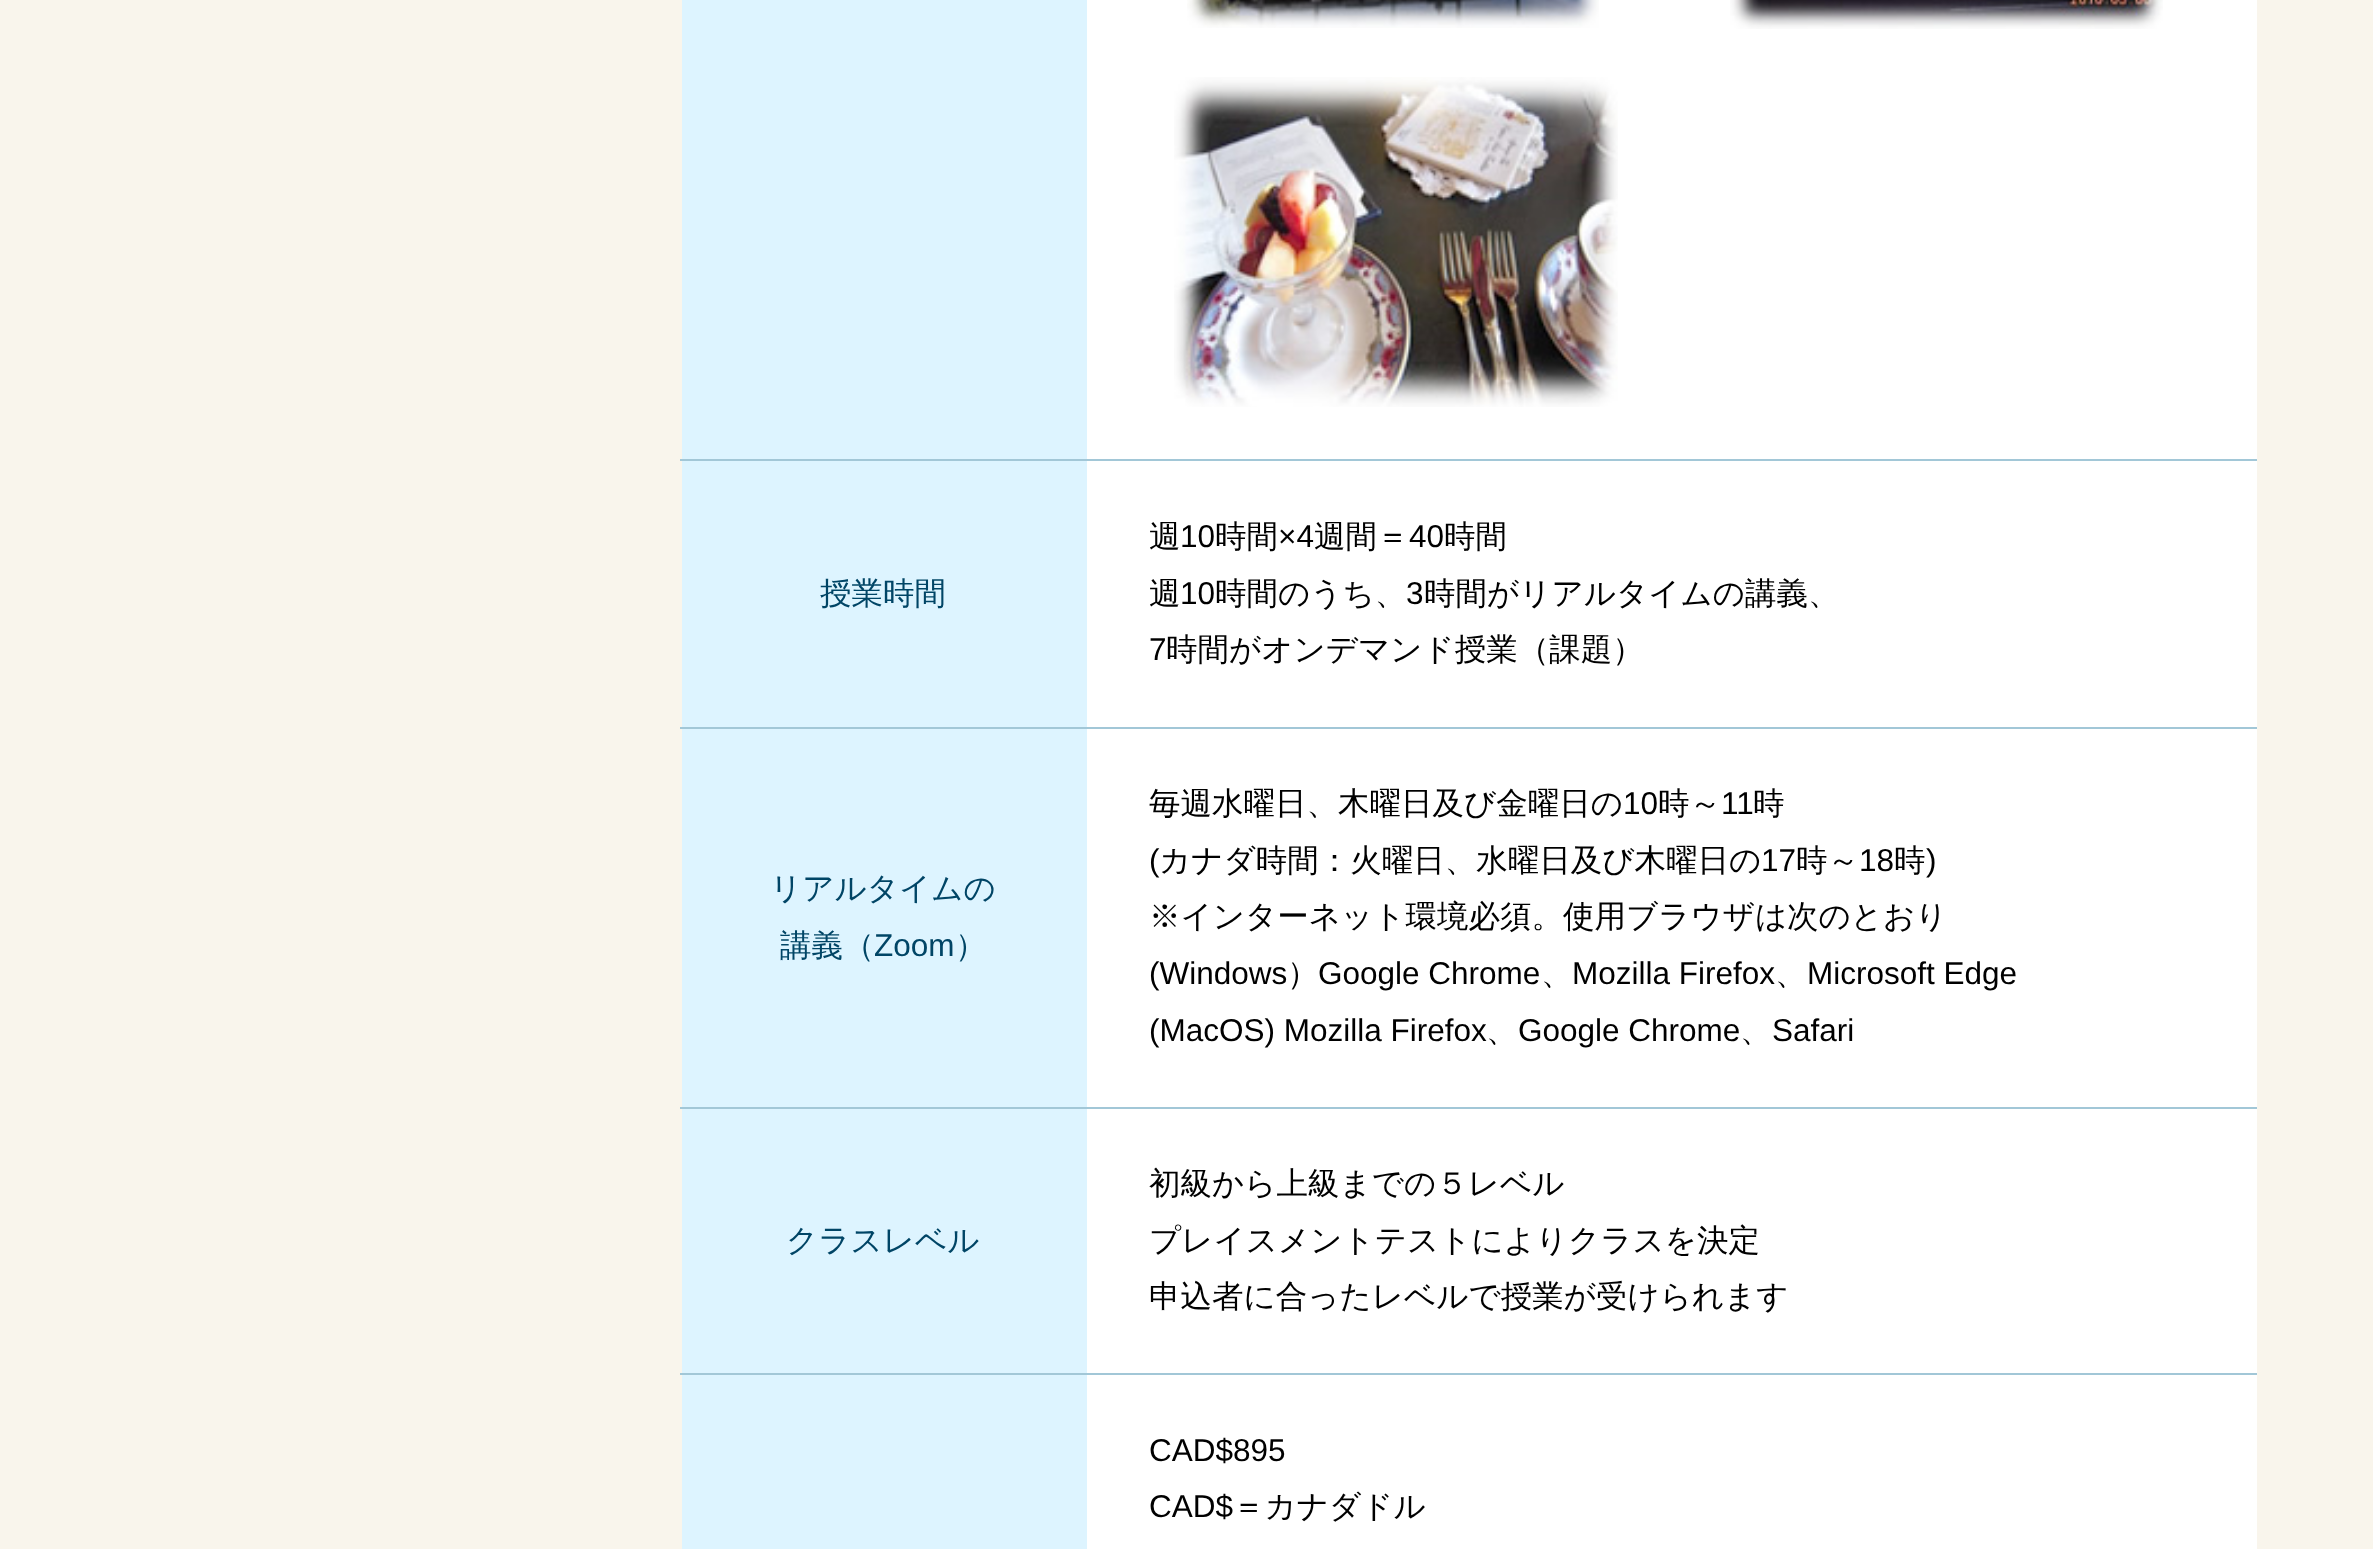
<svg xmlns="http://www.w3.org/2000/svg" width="2373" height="1549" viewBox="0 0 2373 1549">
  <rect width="100%" height="100%" fill="#f9f5ec"/>
  <path d="M682 0h405v459H682z" fill="#ddf4ff"/>
  <path d="M1087 0h1170v459H1087z" fill="#fff"/>
  <image x="1187" y="0" width="412" height="28" href="img/1.png"/>
  <image x="1730" y="0" width="433" height="29" href="img/2.png"/>
  <image x="1174" y="77" width="444" height="330" href="img/3.png"/>
  <path d="M680 459h1577v2H680z" fill="#a2c7d7"/>
  <path d="M682 461h405v266H682z" fill="#ddf4ff"/>
  <path d="M1087 461h1170v266H1087z" fill="#fff"/>
  <path d="M680 727h1577v2H680z" fill="#a2c7d7"/>
  <path d="M682 729h405v378H682z" fill="#ddf4ff"/>
  <path d="M1087 729h1170v378H1087z" fill="#fff"/>
  <path d="M680 1107h1577v2H680z" fill="#a2c7d7"/>
  <path d="M682 1109h405v264H682z" fill="#ddf4ff"/>
  <path d="M1087 1109h1170v264H1087z" fill="#fff"/>
  <path d="M680 1373h1577v2H680z" fill="#a2c7d7"/>
  <path d="M682 1375h405v174H682z" fill="#ddf4ff"/>
  <path d="M1087 1375h1170v174H1087z" fill="#fff"/>
  <text x="820" y="604" font-family="WenQuanYi Zen Hei" font-size="31.5" font-weight="500" fill="#004566">授業時間</text>
  <text x="1149" y="547" font-family="WenQuanYi Zen Hei" font-size="31.5" font-weight="500" fill="#000">週</text>
  <text x="1180" y="547" font-family="Liberation Sans" font-size="31.5" fill="#000">10</text>
  <text x="1215" y="547" font-family="WenQuanYi Zen Hei" font-size="31.5" font-weight="500" fill="#000">時間</text>
  <text x="1278" y="547" font-family="Liberation Sans" font-size="31.5" fill="#000">×4</text>
  <text x="1314" y="547" font-family="WenQuanYi Zen Hei" font-size="31.5" font-weight="500" fill="#000">週間＝</text>
  <text x="1409" y="547" font-family="Liberation Sans" font-size="31.5" fill="#000">40</text>
  <g font-family="WenQuanYi Zen Hei" font-size="31.5" font-weight="500" fill="#000">
    <text x="1444" y="547">時間</text>
    <text x="1149" y="604">週</text>
  </g>
  <text x="1180" y="604" font-family="Liberation Sans" font-size="31.5" fill="#000">10</text>
  <text x="1215" y="604" font-family="WenQuanYi Zen Hei" font-size="31.5" font-weight="500" fill="#000">時間のうち、</text>
  <text x="1406" y="604" font-family="Liberation Sans" font-size="31.5" fill="#000">3</text>
  <text x="1424" y="604" font-family="WenQuanYi Zen Hei" font-size="31.5" font-weight="500" fill="#000">時間がリアルタイムの講義、</text>
  <text x="1149" y="660" font-family="Liberation Sans" font-size="31.5" fill="#000">7</text>
  <text x="1166" y="660" font-family="WenQuanYi Zen Hei" font-size="31.5" font-weight="500" fill="#000">時間がオンデマンド授業（課題）</text>
  <g font-family="WenQuanYi Zen Hei" font-size="31.5" font-weight="500" fill="#004566">
    <text x="770" y="899">リアルタイムの</text>
    <text x="780" y="956">講義（</text>
  </g>
  <text x="874" y="956" font-family="Liberation Sans" font-size="31.5" fill="#004566">Zoom</text>
  <text x="955" y="956" font-family="WenQuanYi Zen Hei" font-size="31.5" font-weight="500" fill="#004566">）</text>
  <text x="1149" y="814" font-family="WenQuanYi Zen Hei" font-size="31.5" font-weight="500" fill="#000">毎週水曜日、木曜日及び金曜日の</text>
  <text x="1623" y="814" font-family="Liberation Sans" font-size="31.5" fill="#000">10</text>
  <text x="1658" y="814" font-family="WenQuanYi Zen Hei" font-size="31.5" font-weight="500" fill="#000">時～</text>
  <text x="1721" y="814" font-family="Liberation Sans" font-size="31.5" fill="#000">11</text>
  <text x="1753" y="814" font-family="WenQuanYi Zen Hei" font-size="31.5" font-weight="500" fill="#000">時</text>
  <text x="1149" y="871" font-family="Liberation Sans" font-size="31.5" fill="#000">(</text>
  <text x="1159" y="871" font-family="WenQuanYi Zen Hei" font-size="31.5" font-weight="500" fill="#000">カナダ時間：火曜日、水曜日及び木曜日の</text>
  <text x="1761" y="871" font-family="Liberation Sans" font-size="31.5" fill="#000">17</text>
  <text x="1796" y="871" font-family="WenQuanYi Zen Hei" font-size="31.5" font-weight="500" fill="#000">時～</text>
  <text x="1859" y="871" font-family="Liberation Sans" font-size="31.5" fill="#000">18</text>
  <text x="1894" y="871" font-family="WenQuanYi Zen Hei" font-size="31.5" font-weight="500" fill="#000">時</text>
  <text x="1926" y="871" font-family="Liberation Sans" font-size="31.5" fill="#000">)</text>
  <text x="1149" y="927" font-family="WenQuanYi Zen Hei" font-size="31.5" font-weight="500" fill="#000">※インターネット環境必須。使用ブラウザは次のとおり</text>
  <text x="1149" y="984" font-family="Liberation Sans" font-size="31.5" fill="#000">(Windows</text>
  <text x="1287" y="984" font-family="WenQuanYi Zen Hei" font-size="31.5" font-weight="500" fill="#000">）</text>
  <text x="1318" y="984" font-family="Liberation Sans" font-size="31.5" fill="#000">Google Chrome</text>
  <text x="1541" y="984" font-family="WenQuanYi Zen Hei" font-size="31.5" font-weight="500" fill="#000">、</text>
  <text x="1572" y="984" font-family="Liberation Sans" font-size="31.5" fill="#000">Mozilla Firefox</text>
  <text x="1775" y="984" font-family="WenQuanYi Zen Hei" font-size="31.5" font-weight="500" fill="#000">、</text>
  <g font-family="Liberation Sans" font-size="31.5" fill="#000">
    <text x="1807" y="984">Microsoft Edge</text>
    <text x="1149" y="1041">(MacOS) Mozilla Firefox</text>
  </g>
  <text x="1486" y="1041" font-family="WenQuanYi Zen Hei" font-size="31.5" font-weight="500" fill="#000">、</text>
  <text x="1518" y="1041" font-family="Liberation Sans" font-size="31.5" fill="#000">Google Chrome</text>
  <text x="1740" y="1041" font-family="WenQuanYi Zen Hei" font-size="31.5" font-weight="500" fill="#000">、</text>
  <text x="1772" y="1041" font-family="Liberation Sans" font-size="31.5" fill="#000">Safari</text>
  <text x="786" y="1251" font-family="WenQuanYi Zen Hei" font-size="31.5" font-weight="500" fill="#004566">クラスレベル</text>
  <g font-family="WenQuanYi Zen Hei" font-size="31.5" font-weight="500" fill="#000">
    <text x="1149" y="1194">初級から上級までの５レベル</text>
    <text x="1149" y="1251">プレイスメントテストによりクラスを決定</text>
    <text x="1149" y="1307">申込者に合ったレベルで授業が受けられます</text>
  </g>
  <g font-family="Liberation Sans" font-size="31.5" fill="#000">
    <text x="1149" y="1461">CAD$895</text>
    <text x="1149" y="1517">CAD$</text>
  </g>
  <text x="1233" y="1517" font-family="WenQuanYi Zen Hei" font-size="31.5" font-weight="500" fill="#000">＝カナダドル</text>
</svg>
